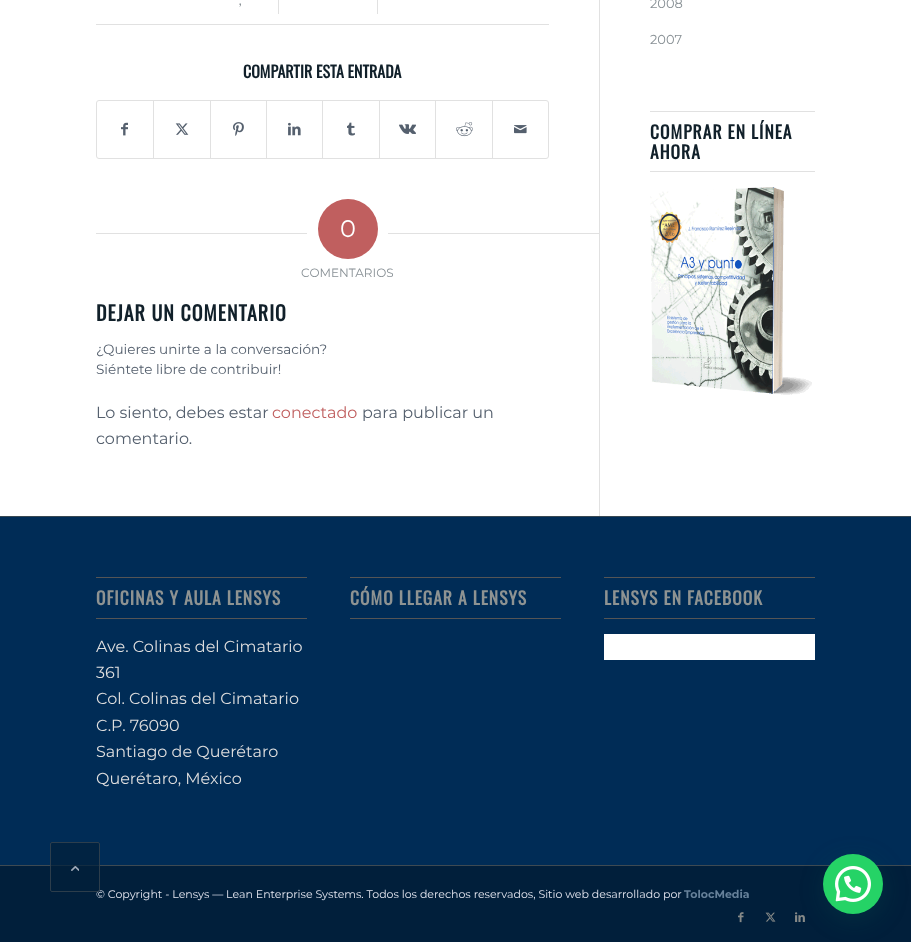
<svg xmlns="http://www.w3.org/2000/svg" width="911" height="942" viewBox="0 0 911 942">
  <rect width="100%" height="100%" fill="#fff"/>
  <path d="M599 0h1v516H599z" fill="#e1e1e1"/>
  <path d="M96 24h453v1H96z" fill="#e1e1e1"/>
  <path d="M278 0h1v14H278z" fill="#e1e1e1"/>
  <path d="M377 0h1v14H377z" fill="#e1e1e1"/>
  <rect x="96.5" y="100.5" width="452" height="58" rx="2.5" fill="none" stroke="#e1e1e1"/>
  <image x="121" y="122" width="7" height="14" href="img/2.png"/>
  <path d="M153 101h1v57H153z" fill="#e1e1e1"/>
  <image x="175" y="123" width="14" height="12" href="img/3.png"/>
  <path d="M210 101h1v57H210z" fill="#e1e1e1"/>
  <image x="233" y="122" width="11" height="14" href="img/4.png"/>
  <path d="M266 101h1v57H266z" fill="#e1e1e1"/>
  <image x="288" y="122" width="13" height="14" href="img/5.png"/>
  <path d="M322 101h1v57H322z" fill="#e1e1e1"/>
  <image x="347" y="122" width="8" height="14" href="img/6.png"/>
  <path d="M379 101h1v57H379z" fill="#e1e1e1"/>
  <image x="399" y="124" width="17" height="10" href="img/7.png"/>
  <path d="M435 101h1v57H435z" fill="#e1e1e1"/>
  <image x="456" y="122" width="17" height="15" href="img/8.png"/>
  <path d="M492 101h1v57H492z" fill="#e1e1e1"/>
  <image x="514" y="125" width="13" height="9" href="img/9.png"/>
  <path d="M96 233h211v1H96z" fill="#e1e1e1"/>
  <circle cx="348" cy="229" r="30" fill="#c05f5f"/>
  <path d="M388 233h211v1H388z" fill="#e1e1e1"/>
  <path d="M650 111h165v1H650z" fill="#e1e1e1"/>
  <path d="M650 171h165v1H650z" fill="#e1e1e1"/>
  <image x="650" y="187" width="162" height="208" href="img/10.png"/>
  <path d="M0 517h911v348H0z" fill="#002c56"/>
  <path d="M0 516h911v1H0z" fill="#384852"/>
  <path d="M96 577h211v1H96z" fill="#555"/>
  <path d="M96 618h211v1H96z" fill="#555"/>
  <path d="M350 577h211v1H350z" fill="#555"/>
  <path d="M350 618h211v1H350z" fill="#555"/>
  <path d="M604 577h211v1H604z" fill="#555"/>
  <path d="M604 618h211v1H604z" fill="#555"/>
  <path d="M604 634h211v26H604z" fill="#fff"/>
  <path d="M0 866h911v76H0z" fill="#011f3b"/>
  <path d="M0 865h911v1H0z" fill="#3e4a52"/>
  <image x="738" y="912" width="6" height="11" href="img/11.png"/>
  <image x="765" y="912" width="11" height="10" href="img/12.png"/>
  <image x="795" y="912" width="10" height="10" href="img/13.png"/>
  <rect x="824" y="860" width="60" height="60" rx="30" fill="#075e543d" filter="blur(12px)"/>
  <circle cx="853" cy="884" r="30" fill="#25d366"/>
  <image x="835" y="866" width="36" height="36" href="img/14.png"/>
  <text x="239" y="5" font-family="Oswald" font-size="13" fill="#889095">,</text>
  <text x="243" y="78" font-family="Oswald" font-size="16" font-weight="bold" fill="#11202a">COMPARTIR ESTA ENTRADA</text>
  <text x="340" y="237" font-family="Montserrat" font-size="24" fill="#fff">0</text>
  <text x="301" y="277" font-family="Montserrat" font-size="12" fill="#889095">COMENTARIOS</text>
  <text x="96" y="321" font-family="Oswald" font-size="20" font-weight="bold" letter-spacing="1" fill="#11202a">DEJAR UN COMENTARIO</text>
  <g font-family="Montserrat" font-size="13.6" fill="#55606e">
    <text x="96" y="354">¿Quieres unirte a la conversación?</text>
    <text x="96" y="374">Siéntete libre de contribuir!</text>
  </g>
  <text x="96" y="418" font-family="Montserrat" font-size="16" fill="#55606e">Lo siento, debes estar</text>
  <text x="272" y="418" font-family="Montserrat" font-size="16" fill="#c05f5f">conectado</text>
  <g font-family="Montserrat" font-size="16" fill="#55606e">
    <text x="362" y="418">para publicar un</text>
    <text x="96" y="444">comentario.</text>
  </g>
  <g font-family="Montserrat" font-size="13" fill="#889095">
    <text x="650" y="8">2008</text>
    <text x="650" y="44">2007</text>
  </g>
  <g font-family="Oswald" font-size="17.6" font-weight="bold" letter-spacing="1" fill="#11202a">
    <text x="650" y="139">COMPRAR EN LÍNEA</text>
    <text x="650" y="159">AHORA</text>
  </g>
  <text x="96" y="605" font-family="Oswald" font-size="17.6" font-weight="bold" letter-spacing="1" fill="#8e9392">OFICINAS Y AULA LENSYS</text>
  <g font-family="Montserrat" font-size="16" fill="#dedede">
    <text x="96" y="652">Ave. Colinas del Cimatario</text>
    <text x="96" y="678">361</text>
    <text x="96" y="704">Col. Colinas del Cimatario</text>
    <text x="96" y="731">C.P. 76090</text>
    <text x="96" y="757">Santiago de Querétaro</text>
    <text x="96" y="784">Querétaro, México</text>
  </g>
  <g font-family="Oswald" font-size="17.6" font-weight="bold" letter-spacing="1" fill="#8e9392">
    <text x="350" y="605">CÓMO LLEGAR A LENSYS</text>
    <text x="604" y="605">LENSYS EN FACEBOOK</text>
  </g>
  <text x="96" y="898" font-family="Montserrat" font-size="11" fill="#e4e6f0">© Copyright - Lensys — Lean Enterprise Systems. Todos los derechos reservados, Sitio web desarrollado por</text>
  <rect x="50" y="842" width="50" height="50" rx="2" fill="#011f3bb3"/>
  <rect x="50.5" y="842.5" width="49" height="49" rx="1.5" fill="none" stroke="#3e4a52b3"/>
  <image x="71" y="866" width="8" height="5" href="img/1.png"/>
  <text x="684" y="898" font-family="Montserrat" font-size="11" font-weight="bold" fill="#66819a">TolocMedia</text>
</svg>
